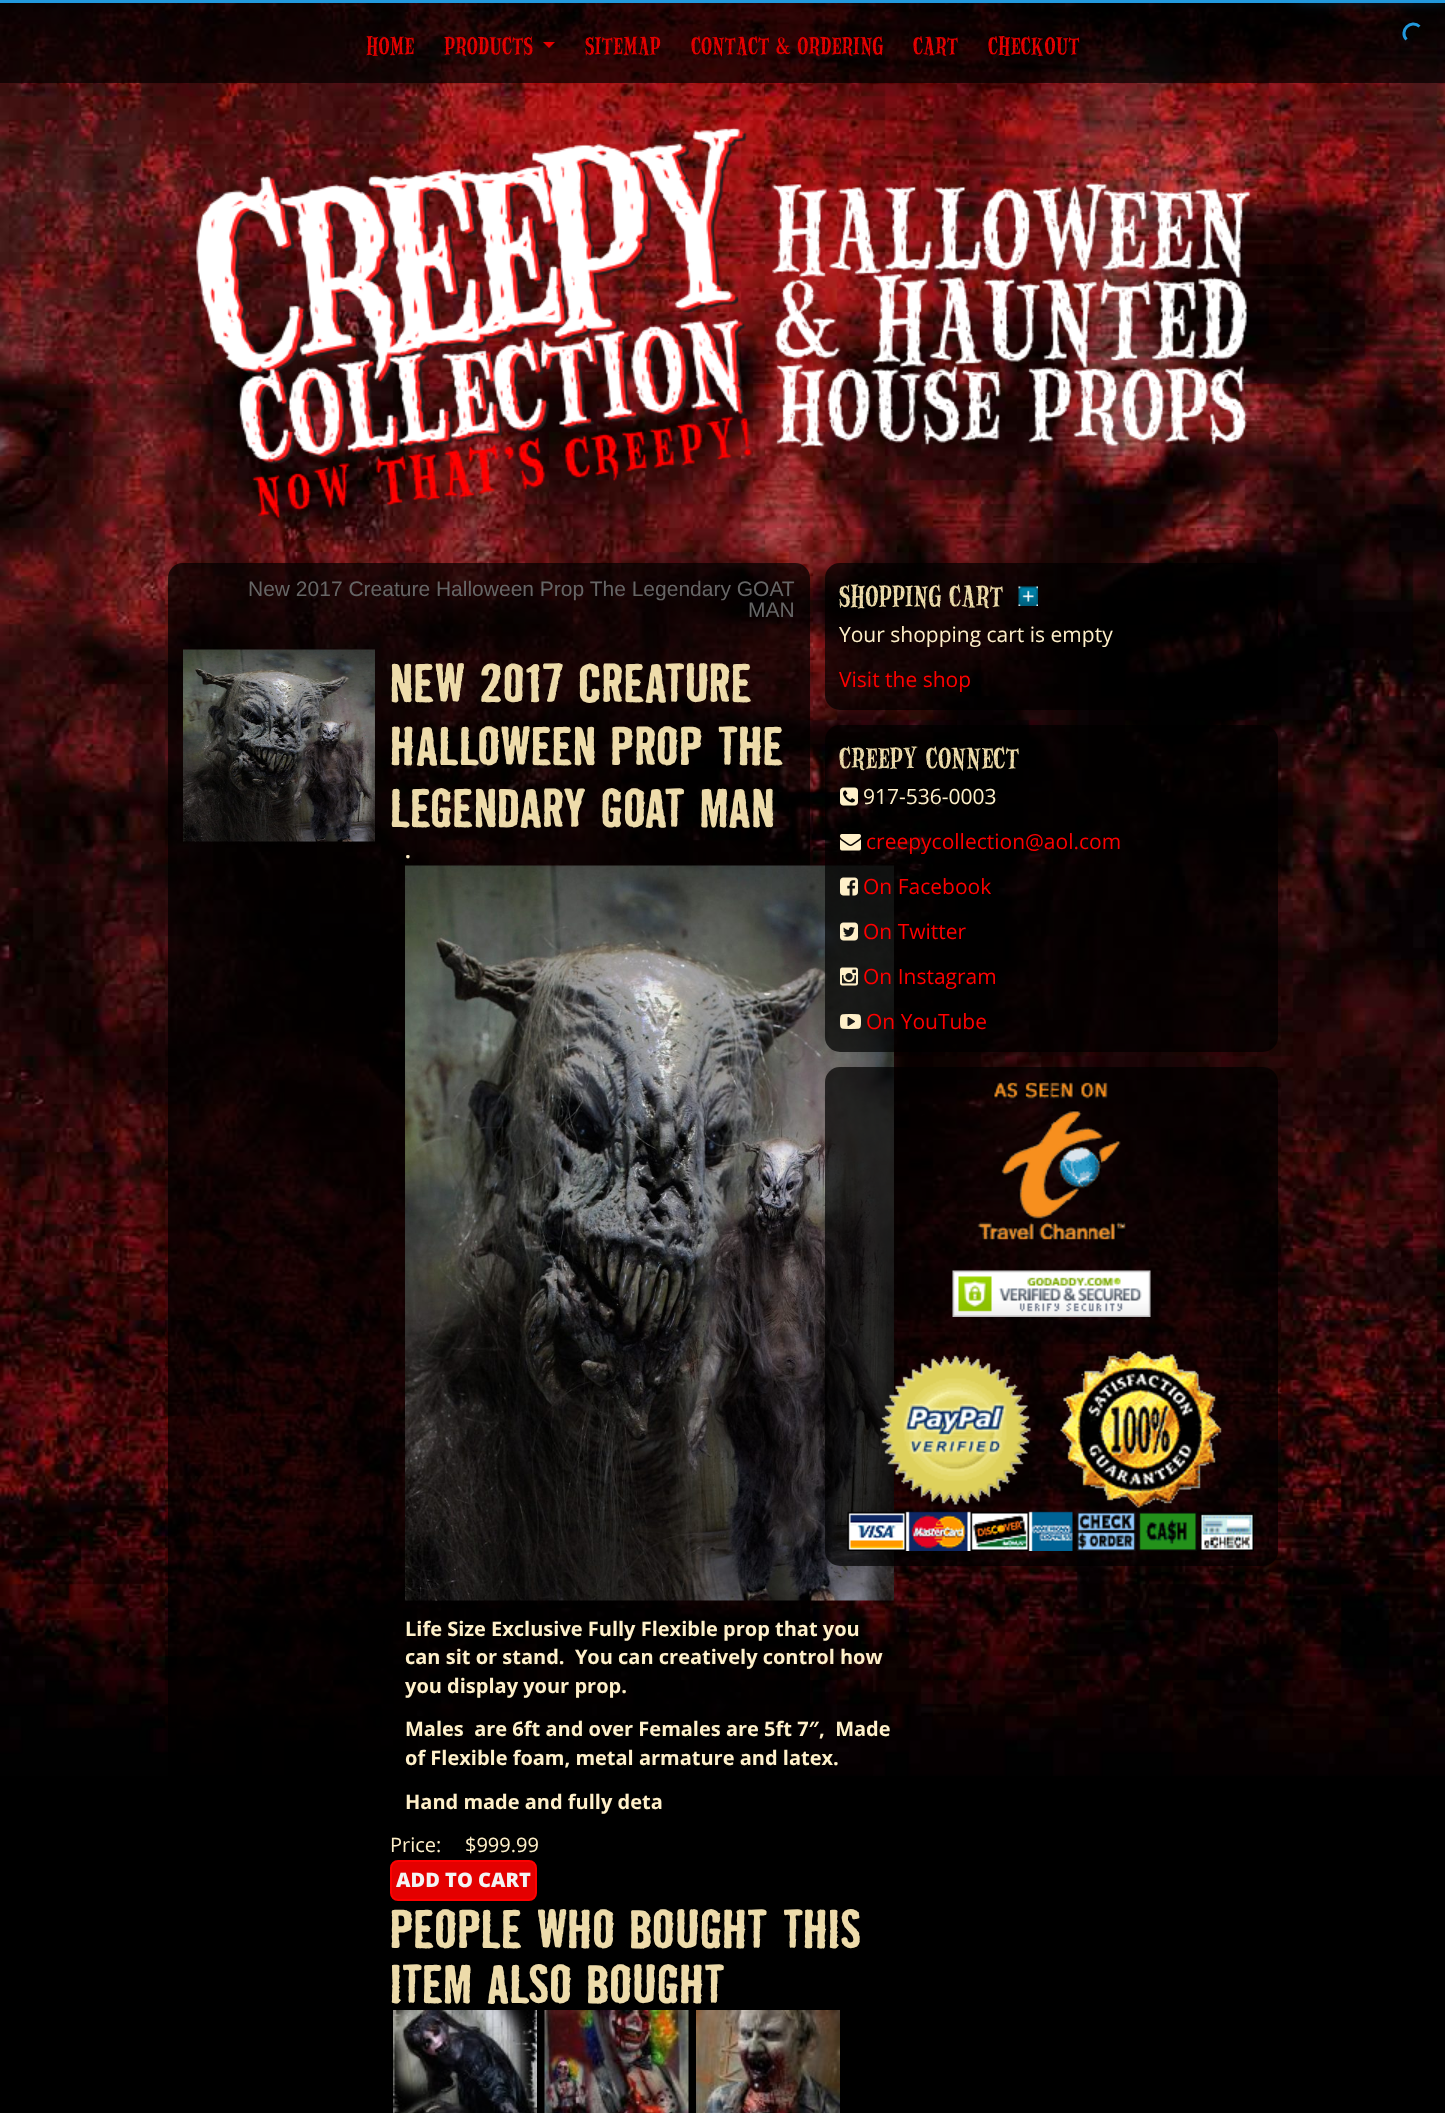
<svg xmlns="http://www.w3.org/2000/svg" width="1445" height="2113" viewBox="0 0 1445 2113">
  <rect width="100%" height="100%" fill="#000"/>
  <image x="0" y="3" width="1445" height="1773" href="img/1.png"/>
  <path d="M0 0h1445v3H0z" fill="#29d"/>
  <path d="M0 3h1445v80H0z" fill="#000000b3"/>
  <path d="M1296 -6h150v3H1296z" fill="#29d" filter="blur(7.5px)"/>
  <path d="M1406.5 39.5C1398.5 31 1411 18.5 1419.5 26.5" fill="none" stroke="#29d" stroke-width="3"/>
  <path d="M543 42H555L549 48Z" fill="#e40000"/>
  <image x="196" y="127" width="1055" height="391" href="img/2.png"/>
  <rect x="168" y="563" width="642" height="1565" rx="15" fill="#000000b3"/>
  <image x="183" y="649" width="192" height="193" href="img/3.png"/>
  <image x="405" y="865" width="489" height="736" href="img/4.png"/>
  <rect x="391" y="1861" width="145" height="39" rx="7" fill="#e40000" stroke="#ff0101" stroke-width="2"/>
  <image x="393" y="2010" width="144" height="103" href="img/5.png"/>
  <image x="544" y="2010" width="145" height="103" href="img/6.png"/>
  <image x="696" y="2010" width="144" height="103" href="img/7.png"/>
  <rect x="825" y="563" width="453" height="147" rx="15" fill="#000000b3"/>
  <image x="1018" y="586" width="20" height="20" href="img/8.png"/>
  <rect x="825" y="725" width="453" height="327" rx="15" fill="#000000b3"/>
  <image x="840" y="787" width="18" height="19" href="img/9.png"/>
  <image x="840" y="834" width="21" height="17" href="img/10.png"/>
  <image x="840" y="877" width="18" height="19" href="img/11.png"/>
  <image x="840" y="922" width="18" height="19" href="img/12.png"/>
  <image x="840" y="967" width="18" height="19" href="img/13.png"/>
  <image x="840" y="1014" width="21" height="15" href="img/14.png"/>
  <rect x="825" y="1067" width="453" height="499" rx="15" fill="#000000b3"/>
  <image x="977" y="1081" width="149" height="160" href="img/15.png"/>
  <image x="952" y="1270" width="199" height="47" href="img/16.png"/>
  <image x="847" y="1351" width="407" height="200" href="img/17.png"/>
  <g font-family="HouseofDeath" font-size="26.25" font-weight="500" fill="#e40000">
    <text x="366" y="54">HOME</text>
    <text x="444" y="54">PRODUCTS</text>
    <text x="585" y="54">SITEMAP</text>
    <text x="691" y="54">CONTACT &amp; ORDERING</text>
    <text x="913" y="54">CART</text>
    <text x="988" y="54">CHECKOUT</text>
  </g>
  <g font-family="Liberation Sans" font-size="21" fill="#666">
    <text x="248" y="596">New 2017 Creature Halloween Prop The Legendary GOAT</text>
    <text x="748" y="617">MAN</text>
  </g>
  <g font-family="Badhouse" font-size="50" font-weight="bold" fill="#eddbaa">
    <text x="390" y="702">NEW 2017 CREATURE</text>
    <text x="390" y="765">HALLOWEEN PROP THE</text>
    <text x="390" y="827">LEGENDARY GOAT MAN</text>
  </g>
  <g font-family="Open Sans" font-size="20" font-weight="bold" fill="#fff0c9">
    <text x="405" y="858">.</text>
    <text x="405" y="1636">Life Size Exclusive Fully Flexible prop that you</text>
    <text x="405" y="1664" xml:space="preserve">can sit or stand.  You can creatively control how</text>
    <text x="405" y="1693">you display your prop.</text>
    <text x="405" y="1736" xml:space="preserve">Males  are 6ft and over Females are 5ft 7″,  Made</text>
    <text x="405" y="1765">of Flexible foam, metal armature and latex.</text>
    <text x="405" y="1809">Hand made and fully deta</text>
  </g>
  <g font-family="Open Sans" font-size="20" fill="#fff0c9">
    <text x="390" y="1852">Price:</text>
    <text x="465" y="1852">$999.99</text>
  </g>
  <text x="396" y="1887" font-family="Open Sans" font-size="20" font-weight="800" fill="#f3f3f3">ADD TO CART</text>
  <g font-family="Badhouse" font-size="50" font-weight="bold" fill="#eddbaa">
    <text x="390" y="1948">PEOPLE WHO BOUGHT THIS</text>
    <text x="390" y="2003">ITEM ALSO BOUGHT</text>
  </g>
  <text x="839" y="606" font-family="HouseofDeath" font-size="31.5" font-weight="500" fill="#eddbaa">SHOPPING CART</text>
  <text x="839" y="642" font-family="Open Sans" font-size="21" fill="#fff0c9">Your shopping cart is empty</text>
  <text x="839" y="687" font-family="Open Sans" font-size="21" fill="#f00">Visit the shop</text>
  <text x="839" y="768" font-family="HouseofDeath" font-size="31.5" font-weight="500" fill="#eddbaa">CREEPY CONNECT</text>
  <text x="863" y="804" font-family="Open Sans" font-size="21" fill="#fff0c9">917-536-0003</text>
  <g font-family="Open Sans" font-size="21" fill="#f00">
    <text x="866" y="849">creepycollection@aol.com</text>
    <text x="863" y="894">On Facebook</text>
    <text x="863" y="939">On Twitter</text>
    <text x="863" y="984">On Instagram</text>
    <text x="866" y="1029">On YouTube</text>
  </g>
</svg>
